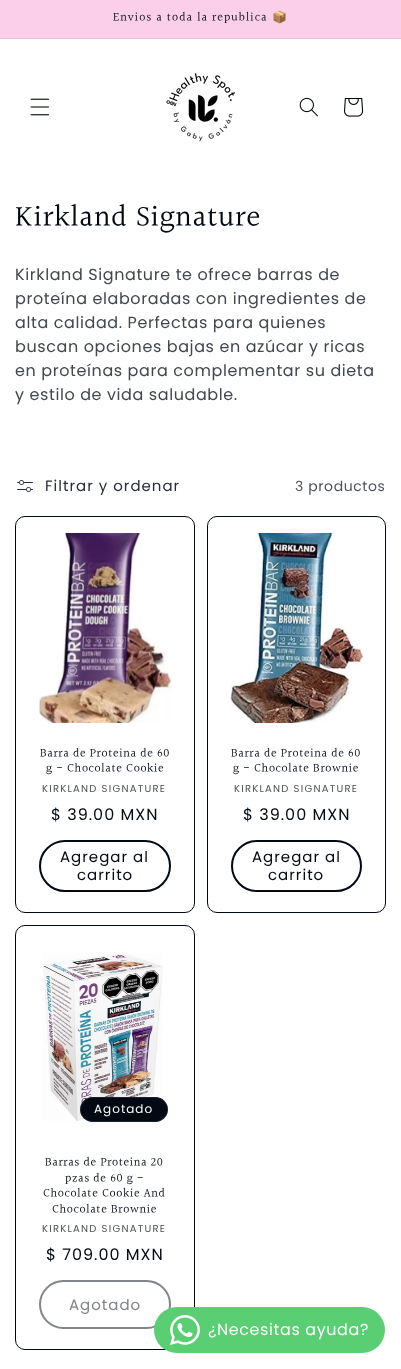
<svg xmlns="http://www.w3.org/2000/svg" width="401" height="1369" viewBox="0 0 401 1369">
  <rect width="100%" height="100%" fill="#fff"/>
  <path d="M0 0h401v38H0z" fill="#fbcfe9"/>
  <path d="M0 38h401v1H0z" fill="#e7bfd8"/>
  <image x="30" y="98" width="20" height="18" href="img/1.png"/>
  <image x="166" y="73" width="69" height="69" href="img/2.png"/>
  <image x="299" y="97" width="19" height="20" href="img/3.png"/>
  <image x="344" y="98" width="20" height="19" href="img/4.png"/>
  <image x="17" y="480" width="16" height="12" href="img/5.png"/>
  <rect x="15.5" y="516.5" width="179" height="396" rx="9.5" fill="none" stroke="#020912"/>
  <image x="38" y="533" width="134" height="190" href="img/6.png"/>
  <rect x="40" y="841" width="130" height="50" rx="25" fill="none" stroke="#020912" stroke-width="2"/>
  <rect x="207.5" y="516.5" width="178" height="396" rx="9.5" fill="none" stroke="#020912"/>
  <image x="230" y="533" width="134" height="190" href="img/7.png"/>
  <rect x="232" y="841" width="129" height="50" rx="25" fill="none" stroke="#020912" stroke-width="2"/>
  <rect x="15.5" y="925.5" width="179" height="424" rx="9.5" fill="none" stroke="#020912"/>
  <image x="42" y="953" width="121" height="168" href="img/8.png"/>
  <rect x="80" y="1097" width="88" height="25" rx="12.5" fill="#020912"/>
  <rect x="80.5" y="1097.5" width="87" height="24" rx="12" fill="none" stroke="#fcfcfc1a"/>
  <rect x="40" y="1281" width="130" height="47" rx="23.5" fill="none" stroke="#818489" stroke-width="2"/>
  <rect x="154" y="1307" width="231" height="46" rx="23" fill="#59ce72"/>
  <image x="170" y="1315" width="30" height="30" href="img/9.png"/>
  <text x="113" y="21" font-family="Halant" font-size="12" letter-spacing="1" fill="#020912">Envios a toda la republica</text>
  <text x="272" y="21" font-family="Noto Color Emoji" font-size="12" letter-spacing="1" fill="#020912">📦</text>
  <text x="15" y="227" font-family="Halant" font-size="30" letter-spacing="0.6" fill="#020912">Kirkland Signature</text>
  <g font-family="Poppins" font-size="16" letter-spacing="0.6" fill="#41474d">
    <text x="15" y="280">Kirkland Signature te ofrece barras de</text>
    <text x="15" y="304">proteína elaboradas con ingredientes de</text>
    <text x="15" y="328">alta calidad. Perfectas para quienes</text>
    <text x="15" y="352">buscan opciones bajas en azúcar y ricas</text>
    <text x="15" y="376">en proteínas para complementar su dieta</text>
    <text x="15" y="400">y estilo de vida saludable.</text>
  </g>
  <text x="45" y="491" font-family="Poppins" font-size="15" letter-spacing="1" fill="#282e36">Filtrar y ordenar</text>
  <text x="295" y="491" font-family="Poppins" font-size="14" letter-spacing="0.6" fill="#4e5359">3 productos</text>
  <g font-family="Halant" font-size="12" letter-spacing="0.6" fill="#020912">
    <text x="40" y="757">Barra de Proteina de 60</text>
    <text x="46" y="772">g - Chocolate Cookie</text>
  </g>
  <text x="42" y="792" font-family="Poppins" font-size="10" letter-spacing="1.25" fill="#4e5359">KIRKLAND SIGNATURE</text>
  <text x="51" y="820" font-family="Poppins" font-size="16" letter-spacing="1" fill="#020912">$ 39.00 MXN</text>
  <g font-family="Poppins" font-size="15" letter-spacing="1" fill="#020912">
    <text x="60" y="862">Agregar al</text>
    <text x="77" y="880">carrito</text>
  </g>
  <g font-family="Halant" font-size="12" letter-spacing="0.6" fill="#020912">
    <text x="231" y="757">Barra de Proteina de 60</text>
    <text x="233" y="772">g - Chocolate Brownie</text>
  </g>
  <text x="234" y="792" font-family="Poppins" font-size="10" letter-spacing="1.25" fill="#4e5359">KIRKLAND SIGNATURE</text>
  <text x="243" y="820" font-family="Poppins" font-size="16" letter-spacing="1" fill="#020912">$ 39.00 MXN</text>
  <g font-family="Poppins" font-size="15" letter-spacing="1" fill="#020912">
    <text x="252" y="862">Agregar al</text>
    <text x="268" y="880">carrito</text>
  </g>
  <text x="94" y="1113" font-family="Poppins" font-size="12" letter-spacing="1" fill="#fcfcfc">Agotado</text>
  <g font-family="Halant" font-size="12" letter-spacing="0.6" fill="#020912">
    <text x="45" y="1166">Barras de Proteina 20</text>
    <text x="65" y="1182">pzas de 60 g -</text>
    <text x="43" y="1197">Chocolate Cookie And</text>
    <text x="52" y="1213">Chocolate Brownie</text>
  </g>
  <text x="42" y="1232" font-family="Poppins" font-size="10" letter-spacing="1.25" fill="#4e5359">KIRKLAND SIGNATURE</text>
  <text x="46" y="1260" font-family="Poppins" font-size="16" letter-spacing="1" fill="#020912">$ 709.00 MXN</text>
  <text x="69" y="1310" font-family="Poppins" font-size="15" letter-spacing="1" fill="#818489">Agotado</text>
  <text x="208" y="1335" font-family="Poppins" font-size="16" letter-spacing="0.6" fill="#fcfcfc">¿Necesitas ayuda?</text>
</svg>
